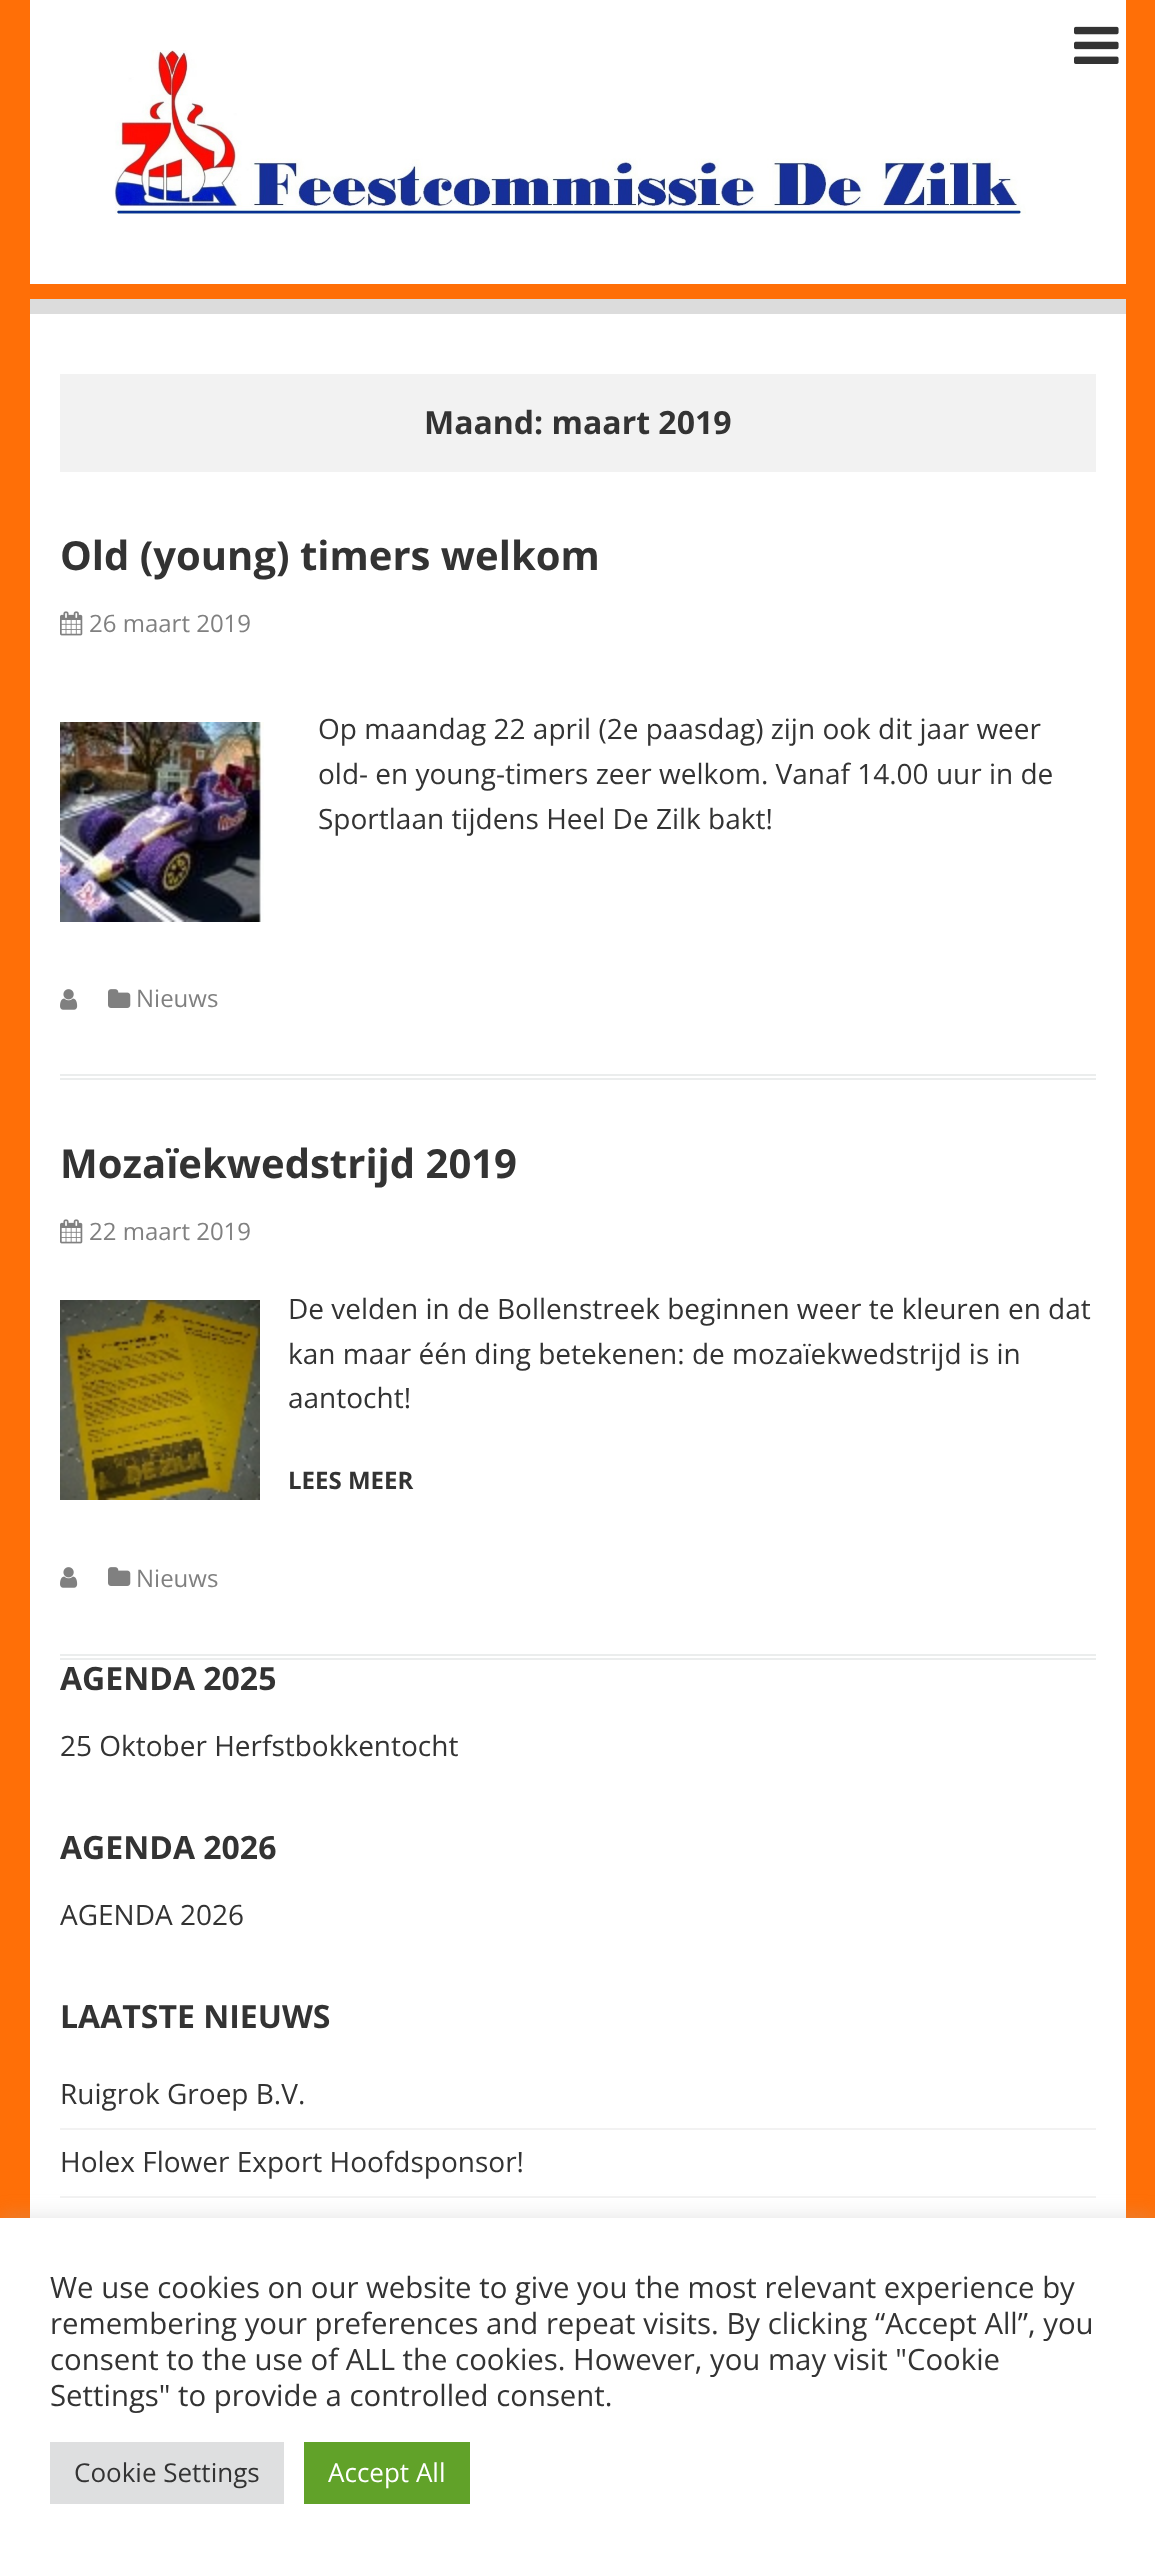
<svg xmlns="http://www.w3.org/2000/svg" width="1155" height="2563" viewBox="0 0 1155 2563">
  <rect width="100%" height="100%" fill="#ff6f07"/>
  <path d="M30 0h1096v284H30z" fill="#fff"/>
  <image x="1074" y="26" width="45" height="38" href="img/1.png"/>
  <image x="113" y="50" width="913" height="164" href="img/2.png"/>
  <path d="M30 299h1096v15H30z" fill="#dcdcdc"/>
  <path d="M30 314h1096v1904H30z" fill="#fff"/>
  <path d="M60 374h1036v98H60z" fill="#f2f2f2"/>
  <path d="M60 1074h1036v2H60z" fill="#ebeded"/>
  <path d="M60 1078h1036v2H60z" fill="#ebeded"/>
  <image x="60" y="611" width="23" height="25" href="img/3.png"/>
  <image x="60" y="722" width="204" height="200" href="img/4.png"/>
  <image x="60" y="989" width="18" height="21" href="img/5.png"/>
  <image x="108" y="989" width="23" height="19" href="img/6.png"/>
  <path d="M60 1654h1036v2H60z" fill="#ebeded"/>
  <path d="M60 1658h1036v2H60z" fill="#ebeded"/>
  <image x="60" y="1219" width="23" height="25" href="img/3.png"/>
  <image x="60" y="1300" width="200" height="200" href="img/7.png"/>
  <image x="60" y="1567" width="18" height="21" href="img/5.png"/>
  <image x="108" y="1567" width="23" height="19" href="img/6.png"/>
  <path d="M60 2128h1036v2H60z" fill="#f2f2f2"/>
  <path d="M60 2196h1036v2H60z" fill="#f2f2f2"/>
  <path d="M0 2216h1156v346H0z" fill="#acabab4d" filter="blur(10px)"/>
  <path d="M0 2218h1155v345H0z" fill="#fff"/>
  <path d="M50 2442h234v62H50z" fill="#dedfe0"/>
  <path d="M304 2442h166v62H304z" fill="#61a229"/>
  <text x="424" y="434" font-family="Open Sans" font-size="32" font-weight="bold" fill="#333">Maand: maart 2019</text>
  <text x="60" y="570" font-family="Open Sans" font-size="40" font-weight="bold" fill="#333">Old (young) timers welkom</text>
  <text x="89" y="632" font-family="Open Sans" font-size="24" fill="#808080">26 maart 2019</text>
  <g font-family="Open Sans" font-size="28" fill="#333">
    <text x="318" y="739">Op maandag 22 april (2e paasdag) zijn ook dit jaar weer</text>
    <text x="318" y="784">old- en young-timers zeer welkom. Vanaf 14.00 uur in de</text>
    <text x="318" y="829">Sportlaan tijdens Heel De Zilk bakt!</text>
  </g>
  <text x="136" y="1007" font-family="Open Sans" font-size="24" fill="#808080">Nieuws</text>
  <text x="60" y="1178" font-family="Open Sans" font-size="40" font-weight="bold" fill="#333">Mozaïekwedstrijd 2019</text>
  <text x="89" y="1240" font-family="Open Sans" font-size="24" fill="#808080">22 maart 2019</text>
  <g font-family="Open Sans" font-size="28" fill="#333">
    <text x="288" y="1319">De velden in de Bollenstreek beginnen weer te kleuren en dat</text>
    <text x="288" y="1364">kan maar één ding betekenen: de mozaïekwedstrijd is in</text>
    <text x="288" y="1408">aantocht!</text>
  </g>
  <text x="288" y="1489" font-family="Open Sans" font-size="24" font-weight="bold" fill="#333">LEES MEER</text>
  <text x="136" y="1587" font-family="Open Sans" font-size="24" fill="#808080">Nieuws</text>
  <text x="60" y="1690" font-family="Open Sans" font-size="32" font-weight="bold" fill="#333">AGENDA 2025</text>
  <text x="60" y="1756" font-family="Open Sans" font-size="28" fill="#333">25 Oktober Herfstbokkentocht</text>
  <text x="60" y="1859" font-family="Open Sans" font-size="32" font-weight="bold" fill="#333">AGENDA 2026</text>
  <text x="60" y="1925" font-family="Open Sans" font-size="28" fill="#333">AGENDA 2026</text>
  <text x="60" y="2028" font-family="Open Sans" font-size="32" font-weight="bold" fill="#333">LAATSTE NIEUWS</text>
  <g font-family="Open Sans" font-size="28" fill="#333">
    <text x="60" y="2104">Ruigrok Groep B.V.</text>
    <text x="60" y="2172">Holex Flower Export Hoofdsponsor!</text>
  </g>
  <g font-family="Open Sans" font-size="29.35" fill="#333">
    <text x="50" y="2298">We use cookies on our website to give you the most relevant experience by</text>
    <text x="50" y="2334">remembering your preferences and repeat visits. By clicking “Accept All”, you</text>
    <text x="50" y="2370">consent to the use of ALL the cookies. However, you may visit "Cookie</text>
    <text x="50" y="2406">Settings" to provide a controlled consent.</text>
  </g>
  <text x="74" y="2482" font-family="Open Sans" font-size="26" fill="#333">Cookie Settings</text>
  <text x="328" y="2482" font-family="Open Sans" font-size="26" fill="#fff">Accept All</text>
</svg>
